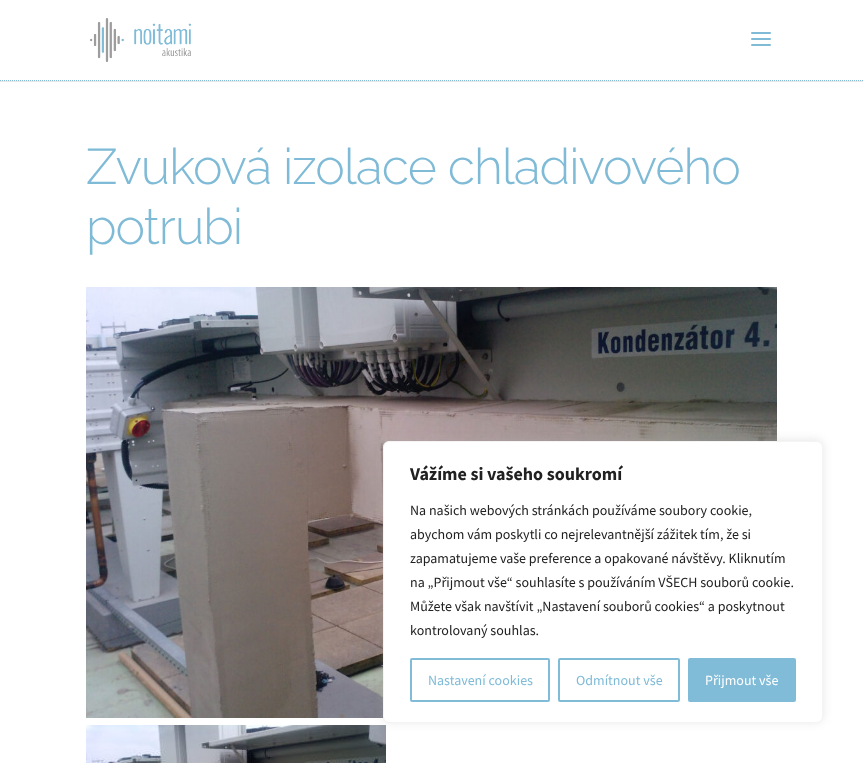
<svg xmlns="http://www.w3.org/2000/svg" width="863" height="763" viewBox="0 0 863 763">
  <rect width="100%" height="100%" fill="#fff"/>
  <path d="M0 81h863v1H0z" fill="#e6e6e6"/>
  <path d="M0 80.5H863" fill="none" stroke="#7fbbd7" stroke-dasharray="1 1"/>
  <image x="90" y="18" width="101" height="44" href="img/1.png"/>
  <image x="751" y="32" width="20" height="14" href="img/2.png"/>
  <image x="86" y="287" width="691" height="431" href="img/3.png"/>
  <image x="86" y="725" width="300" height="38" href="img/4.png"/>
  <rect x="383" y="440" width="440" height="282" rx="6" fill="#acabab4d" filter="blur(5px)"/>
  <rect x="383.5" y="441.5" width="439" height="281" rx="5.5" fill="#fff" stroke="#f4f4f4"/>
  <rect x="411" y="659" width="138" height="42" rx="1" fill="none" stroke="#80bcd8" stroke-width="2"/>
  <rect x="559" y="659" width="120" height="42" rx="1" fill="none" stroke="#80bcd8" stroke-width="2"/>
  <rect x="689" y="659" width="106" height="42" rx="1" fill="#80bcd8" stroke="#80bcd8" stroke-width="2"/>
  <g font-family="Raleway" font-size="50" font-weight="300" letter-spacing="-1" fill="#7fbbd7">
    <text x="86" y="184">Zvuková izolace chladivového</text>
    <text x="86" y="244">potrubi</text>
  </g>
  <text x="410" y="480" font-family="Source Sans Pro" font-size="18" font-weight="bold" fill="#212121">Vážíme si vašeho soukromí</text>
  <g font-family="Source Sans Pro" font-size="14" fill="#212121">
    <text x="410" y="515">Na našich webových stránkách používáme soubory cookie,</text>
    <text x="410" y="539">abychom vám poskytli co nejrelevantnější zážitek tím, že si</text>
    <text x="410" y="563">zapamatujeme vaše preference a opakované návštěvy. Kliknutím</text>
    <text x="410" y="587">na „Přijmout vše“ souhlasíte s používáním VŠECH souborů cookie.</text>
    <text x="410" y="611">Můžete však navštívit „Nastavení souborů cookies“ a poskytnout</text>
    <text x="410" y="635">kontrolovaný souhlas.</text>
  </g>
  <g font-family="Source Sans Pro" font-size="14" fill="#7fbbd7">
    <text x="428" y="685">Nastavení cookies</text>
    <text x="576" y="685">Odmítnout vše</text>
  </g>
  <text x="705" y="685" font-family="Source Sans Pro" font-size="14" fill="#fff">Přijmout vše</text>
</svg>
